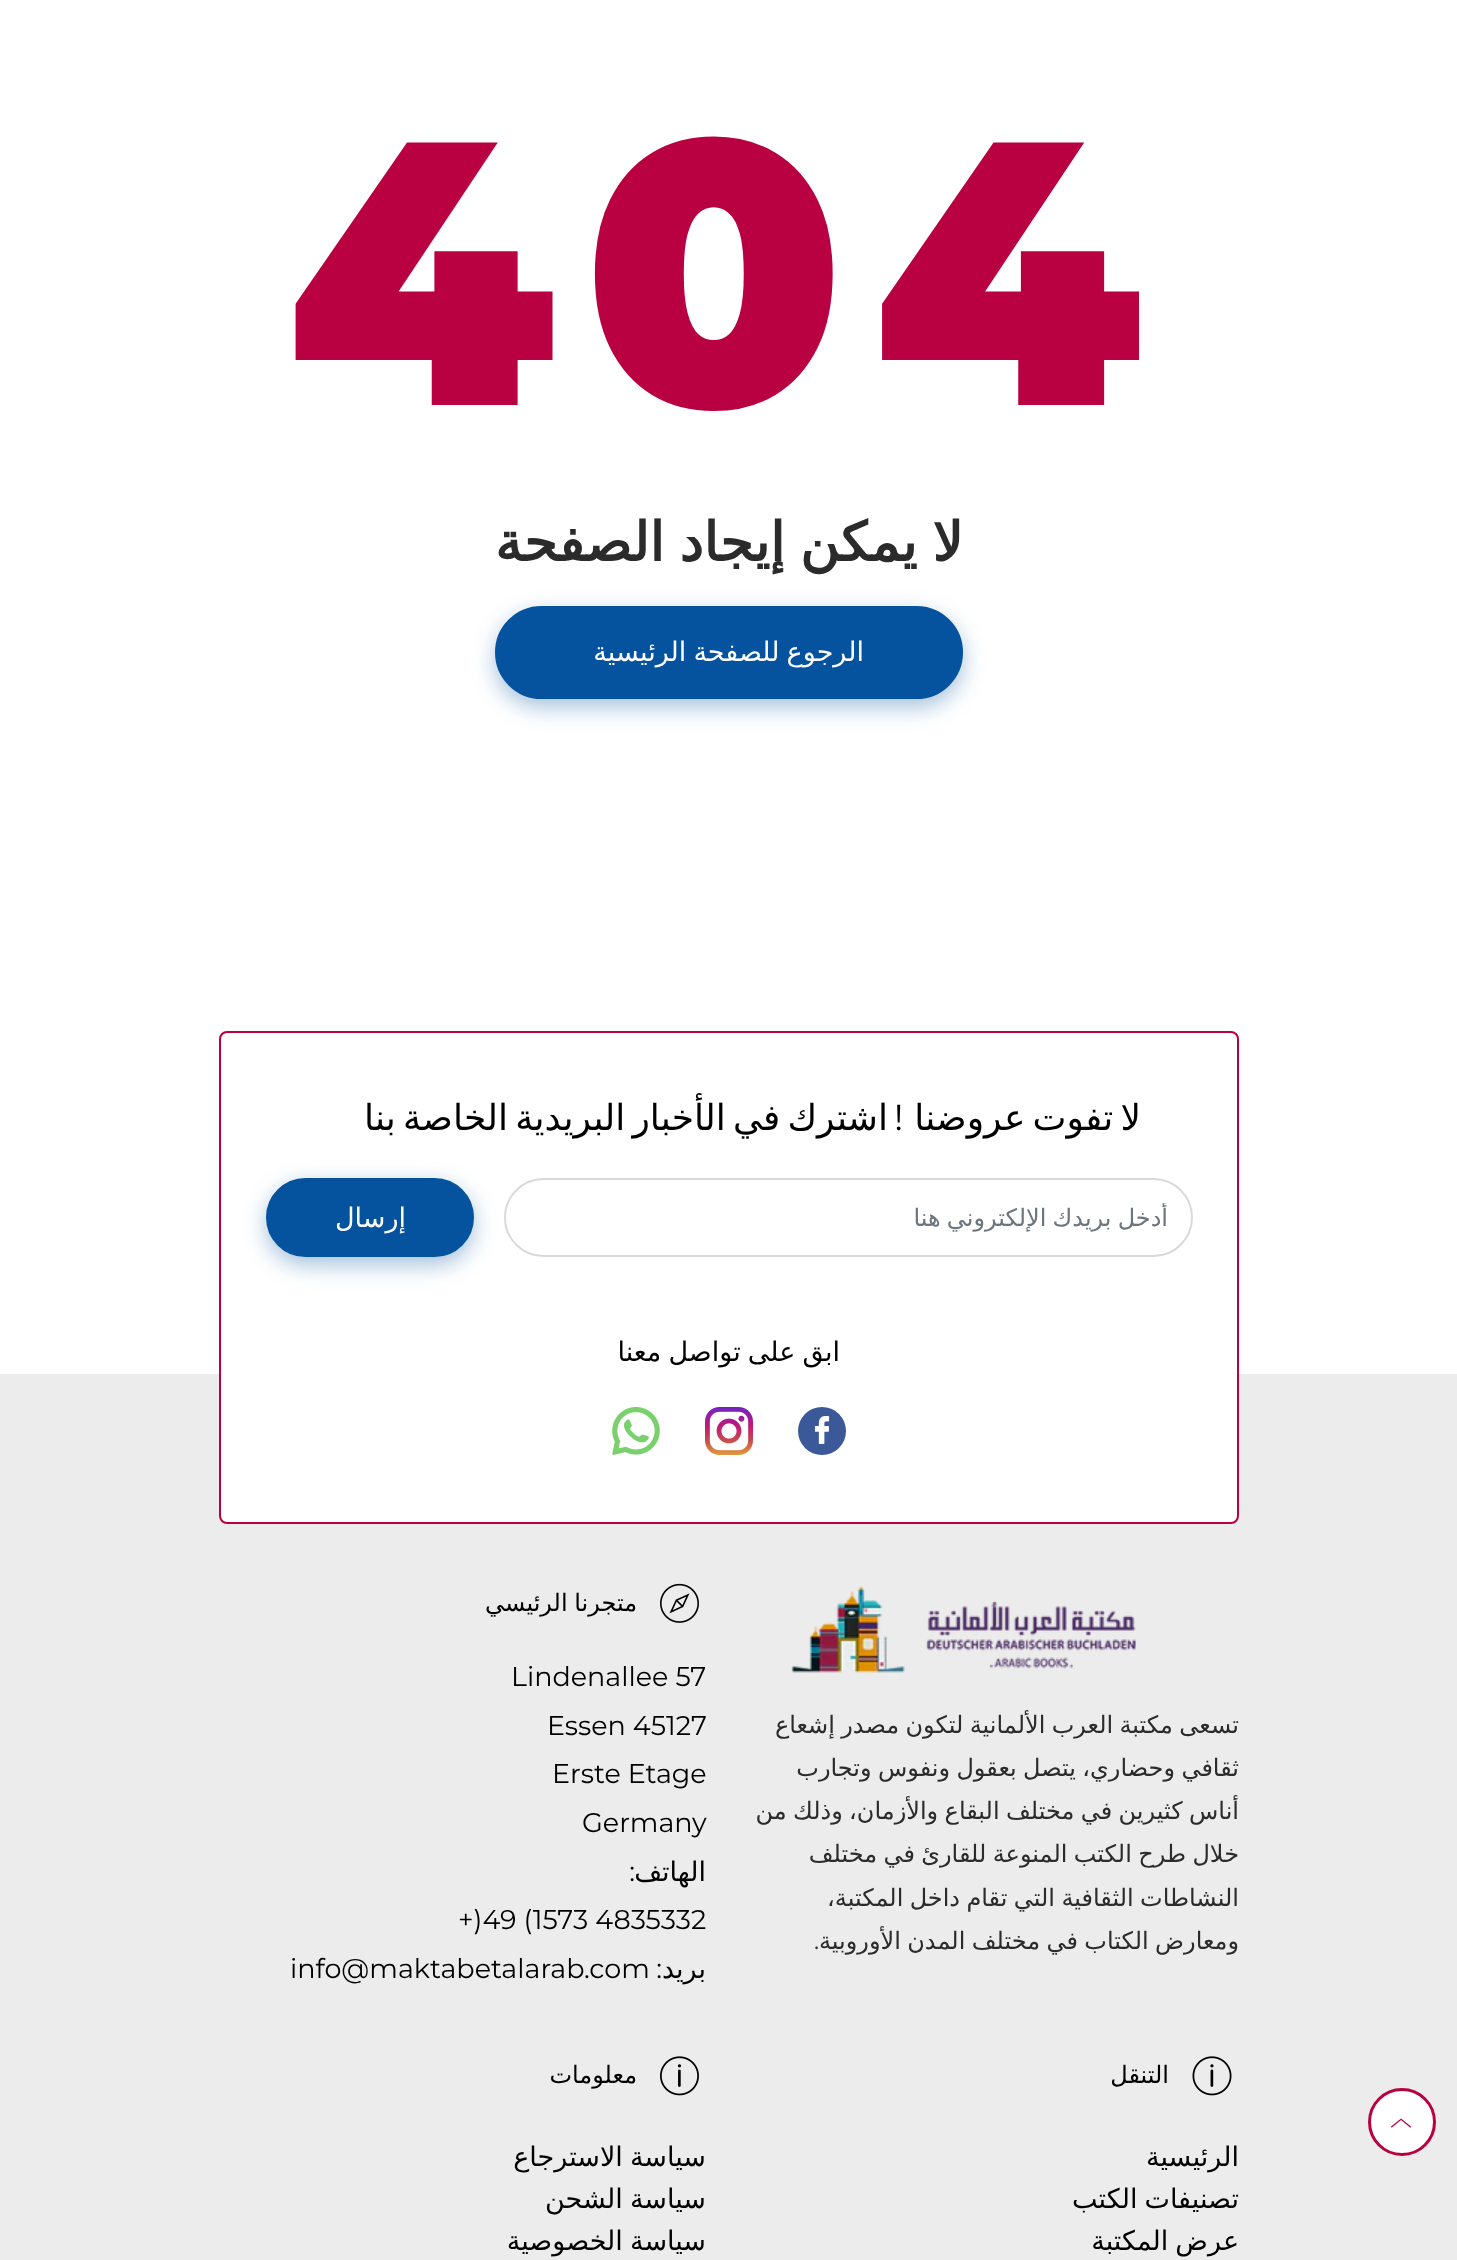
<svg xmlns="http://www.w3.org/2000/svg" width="1457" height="2260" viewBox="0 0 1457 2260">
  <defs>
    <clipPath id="clip1"><path d="M528 1203h641v29H528z"/></clipPath>
  </defs>
  <rect width="100%" height="100%" fill="#fff"/>
  <path d="M0 1374h1457v886H0z" fill="#ececec"/>
  <circle cx="1402" cy="2122" r="32.5" fill="#fff" stroke="#b90041" stroke-width="3"/>
  <image x="1390" y="2118" width="22" height="10" href="img/1.png"/>
  <rect x="495" y="614" width="468" height="93" rx="46.5" fill="#05539e5c" filter="blur(11px)"/>
  <rect x="496" y="607" width="466" height="91" rx="45.5" fill="#05539e" stroke="#05539e" stroke-width="2"/>
  <rect x="220" y="1032" width="1018" height="491" rx="7" fill="#fff" stroke="#b90041" stroke-width="2"/>
  <rect x="505" y="1179" width="687" height="77" rx="38.5" fill="none" stroke="#d9d9d9" stroke-width="2"/>
  <rect x="266" y="1185" width="208" height="80" rx="40" fill="#05539e5c" filter="blur(11px)"/>
  <rect x="267" y="1179" width="206" height="77" rx="38.5" fill="#05539e" stroke="#05539e" stroke-width="2"/>
  <circle cx="822" cy="1431" r="24" fill="#3b5998"/>
  <image x="814" y="1416" width="16" height="28" href="img/2.png"/>
  <image x="705" y="1407" width="48" height="48" href="img/3.png"/>
  <image x="612" y="1407" width="48" height="48" href="img/4.png"/>
  <image x="791" y="1585" width="345" height="88" href="img/5.png"/>
  <image x="660" y="1583" width="39" height="40" href="img/6.png"/>
  <image x="1192" y="2056" width="40" height="40" href="img/7.png"/>
  <image x="660" y="2056" width="39" height="40" href="img/8.png"/>
  <text x="287" y="405" font-family="Montserrat" font-size="375" font-weight="900" letter-spacing="30" fill="#b90041">404</text>
  <text x="963" y="561" word-spacing="-2" font-family="DejaVu Sans" font-size="54" font-weight="bold" direction="rtl" fill="#2b2b2b">لا يمكن إيجاد الصفحة</text>
  <text x="864" y="661" word-spacing="-1.5" font-family="DejaVu Sans" font-size="27" direction="rtl" fill="#fff">الرجوع للصفحة الرئيسية</text>
  <text x="1141" y="1130" word-spacing="-4.25" font-family="DejaVu Sans" font-size="36" letter-spacing="0.75" direction="rtl" fill="#000">لا تفوت عروضنا</text>
  <text x="904" y="1130" font-family="Montserrat" font-size="36" letter-spacing="0.75" direction="rtl" fill="#000">!</text>
  <text x="888" y="1130" word-spacing="-4.25" font-family="DejaVu Sans" font-size="36" letter-spacing="0.75" direction="rtl" fill="#000">اشترك في الأخبار البريدية الخاصة بنا</text>
  <g clip-path="url(#clip1)">
    <text x="1168" y="1226" word-spacing="-1.5" font-family="DejaVu Sans" font-size="24" direction="rtl" fill="#6c757d">أدخل بريدك الإلكتروني هنا</text>
  </g>
  <text x="406" y="1227" font-family="DejaVu Sans" font-size="27" direction="rtl" fill="#fff">إرسال</text>
  <text x="840" y="1361" word-spacing="-1.5" font-family="DejaVu Sans" font-size="27" direction="rtl" fill="#000">ابق على تواصل معنا</text>
  <g font-family="DejaVu Sans" font-size="24" direction="rtl" fill="#2b2b2b">
    <text x="1239" y="1733" word-spacing="-1.25">تسعى مكتبة العرب الألمانية لتكون مصدر إشعاع</text>
    <text x="1239" y="1776" word-spacing="-1.25">ثقافي وحضاري، يتصل بعقول ونفوس وتجارب</text>
    <text x="1239" y="1819" word-spacing="-1.25">أناس كثيرين في مختلف البقاع والأزمان، وذلك من</text>
    <text x="1239" y="1862" word-spacing="-1.25">خلال طرح الكتب المنوعة للقارئ في مختلف</text>
    <text x="1239" y="1906" word-spacing="-1.25">النشاطات الثقافية التي تقام داخل المكتبة،</text>
    <text x="1239" y="1949" word-spacing="-1.25">ومعارض الكتاب في مختلف المدن الأوروبية</text>
  </g>
  <text x="819" y="1949" font-family="Montserrat" font-size="24" direction="rtl" fill="#2b2b2b">.</text>
  <text x="637" y="1611" word-spacing="-1" font-family="DejaVu Sans" font-size="24" direction="rtl" fill="#000">متجرنا الرئيسي</text>
  <g font-family="Montserrat" font-size="27" fill="#000">
    <text x="511" y="1686">Lindenallee 57</text>
    <text x="547" y="1735">Essen 45127</text>
    <text x="552" y="1783">Erste Etage</text>
    <text x="582" y="1832">Germany</text>
  </g>
  <text x="706" y="1881" font-family="DejaVu Sans" font-size="27" direction="rtl" fill="#000">الهاتف</text>
  <text x="635" y="1881" font-family="Montserrat" font-size="27" direction="rtl" fill="#000">:</text>
  <text x="458" y="1929" font-family="Montserrat" font-size="27" fill="#000">+)49 (1573 4835332</text>
  <text x="706" y="1978" font-family="DejaVu Sans" font-size="27" direction="rtl" fill="#000">بريد</text>
  <text x="662" y="1978" font-family="Montserrat" font-size="27" direction="rtl" fill="#000">:</text>
  <text x="290" y="1978" font-family="Montserrat" font-size="27" fill="#000">info@maktabetalarab.com</text>
  <text x="1169" y="2083" font-family="DejaVu Sans" font-size="24" direction="rtl" fill="#000">التنقل</text>
  <g font-family="DejaVu Sans" font-size="27" direction="rtl" fill="#000">
    <text x="1239" y="2166">الرئيسية</text>
    <text x="1239" y="2208" word-spacing="-1.5">تصنيفات الكتب</text>
    <text x="1239" y="2250" word-spacing="-1.5">عرض المكتبة</text>
  </g>
  <text x="637" y="2083" font-family="DejaVu Sans" font-size="24" direction="rtl" fill="#000">معلومات</text>
  <g font-family="DejaVu Sans" font-size="27" direction="rtl" fill="#000">
    <text x="706" y="2166" word-spacing="-1.5">سياسة الاسترجاع</text>
    <text x="706" y="2208" word-spacing="-1.5">سياسة الشحن</text>
    <text x="706" y="2250" word-spacing="-1.5">سياسة الخصوصية</text>
  </g>
</svg>
